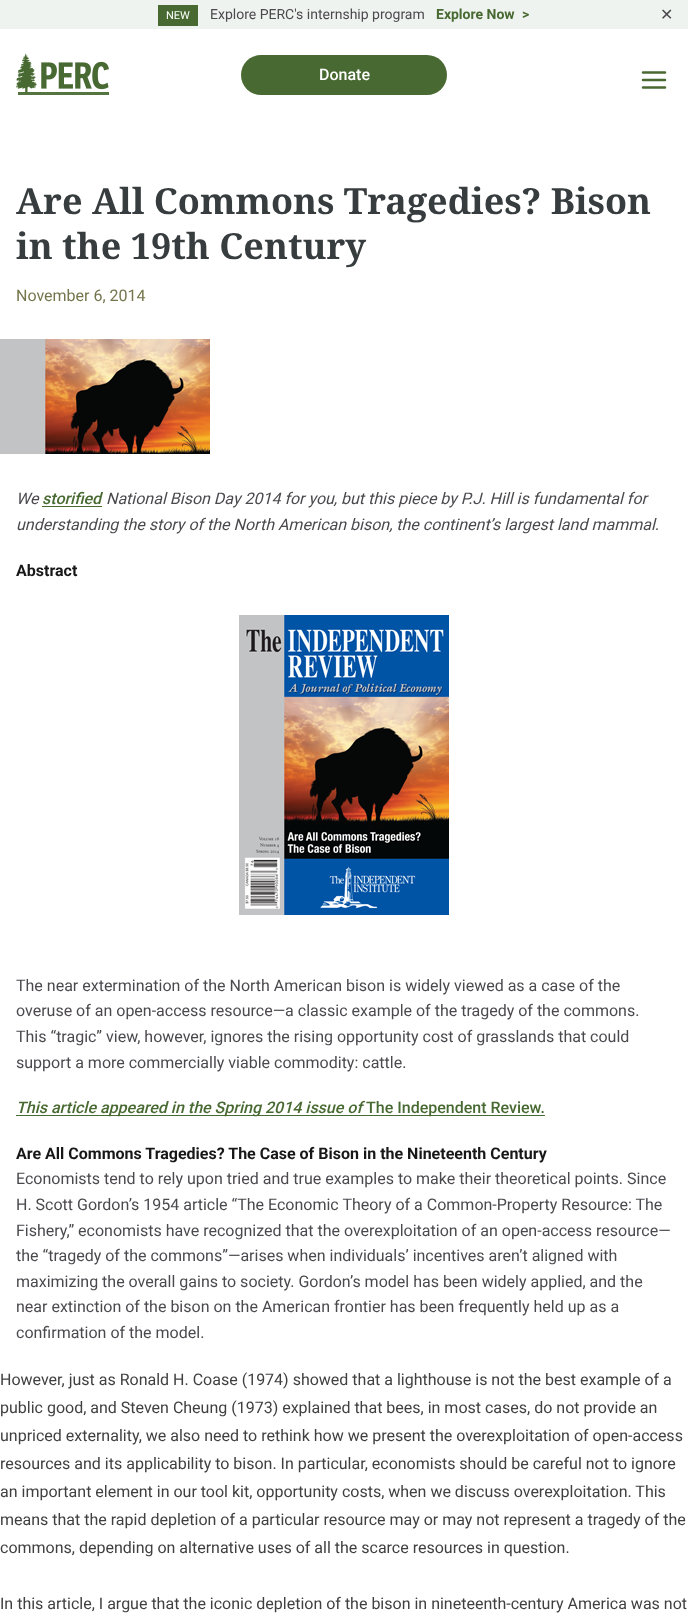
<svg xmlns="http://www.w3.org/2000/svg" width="688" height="1620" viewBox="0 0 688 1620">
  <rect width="100%" height="100%" fill="#fff"/>
  <path d="M0 0h688v29H0z" fill="#eff3f0"/>
  <path d="M158 5h40v21H158z" fill="#486a32"/>
  <image x="16" y="53" width="93" height="42" href="img/1.png"/>
  <rect x="241" y="55" width="206" height="40" rx="20" fill="#486a32"/>
  <path d="M643 80H665M643 72.5H665M643 87.5H665" fill="none" stroke="#486a32" stroke-width="2.5" stroke-linecap="round" stroke-linejoin="round"/>
  <image x="0" y="339" width="210" height="115" href="img/2.png"/>
  <path d="M42 506h60v1H42z" fill="#486a32"/>
  <image x="239" y="615" width="210" height="300" href="img/3.png"/>
  <path d="M16 1115h529v1H16z" fill="#486a32"/>
  <text x="166" y="19" font-family="Roboto" font-size="11" fill="#fff">NEW</text>
  <text x="210" y="19" font-family="Roboto" font-size="14" fill="#4b494e">Explore PERC's internship program</text>
  <g font-family="Roboto" font-size="14" font-weight="bold" fill="#486a32">
    <text x="436" y="19">Explore Now</text>
    <text x="522" y="19">&gt;</text>
  </g>
  <text x="660" y="20" font-family="DejaVu Sans" font-size="16" fill="#4b494e">✕</text>
  <text x="319" y="80" font-family="Roboto" font-size="16" font-weight="500" fill="#fff">Donate</text>
  <g font-family="Noto Serif" font-size="36" font-weight="bold" fill="#373c3e">
    <text x="16" y="214">Are All Commons Tragedies? Bison</text>
    <text x="16" y="259">in the 19th Century</text>
  </g>
  <text x="16" y="301" font-family="Roboto" font-size="16" fill="#75754d">November 6, 2014</text>
  <text x="16" y="504" font-family="Roboto" font-size="16" font-style="italic" fill="#4b494e">We</text>
  <text x="42" y="504" font-family="Roboto" font-size="16" font-weight="500" font-style="italic" fill="#486a32">storified</text>
  <g font-family="Roboto" font-size="16" font-style="italic" fill="#4b494e">
    <text x="106" y="504">National Bison Day 2014 for you, but this piece by P.J. Hill is fundamental for</text>
    <text x="16" y="530">understanding the story of the North American bison, the continent’s largest land mammal.</text>
  </g>
  <text x="16" y="576" font-family="Roboto" font-size="16" font-weight="bold" fill="#171717">Abstract</text>
  <g font-family="Roboto" font-size="16" fill="#4b494e">
    <text x="16" y="991">The near extermination of the North American bison is widely viewed as a case of the</text>
    <text x="16" y="1016">overuse of an open-access resource—a classic example of the tragedy of the commons.</text>
    <text x="16" y="1042">This “tragic” view, however, ignores the rising opportunity cost of grasslands that could</text>
    <text x="16" y="1068">support a more commercially viable commodity: cattle.</text>
  </g>
  <text x="16" y="1113" font-family="Roboto" font-size="16" font-weight="500" font-style="italic" fill="#486a32">This article appeared in the Spring 2014 issue of</text>
  <text x="366" y="1113" font-family="Roboto" font-size="16" font-weight="500" fill="#486a32">The Independent Review.</text>
  <text x="16" y="1159" font-family="Roboto" font-size="16" font-weight="bold" fill="#171717">Are All Commons Tragedies? The Case of Bison in the Nineteenth Century</text>
  <g font-family="Roboto" font-size="16" fill="#4b494e">
    <text x="16" y="1184">Economists tend to rely upon tried and true examples to make their theoretical points. Since</text>
    <text x="16" y="1210">H. Scott Gordon’s 1954 article “The Economic Theory of a Common-Property Resource: The</text>
    <text x="16" y="1236">Fishery,” economists have recognized that the overexploitation of an open-access resource—</text>
    <text x="16" y="1261">the “tragedy of the commons”—arises when individuals’ incentives aren’t aligned with</text>
    <text x="16" y="1287">maximizing the overall gains to society. Gordon’s model has been widely applied, and the</text>
    <text x="16" y="1312">near extinction of the bison on the American frontier has been frequently held up as a</text>
    <text x="16" y="1338">confirmation of the model.</text>
  </g>
  <g font-family="Roboto" font-size="16" fill="#404040">
    <text x="0" y="1385">However, just as Ronald H. Coase (1974) showed that a lighthouse is not the best example of a</text>
    <text x="0" y="1413">public good, and Steven Cheung (1973) explained that bees, in most cases, do not provide an</text>
    <text x="0" y="1441">unpriced externality, we also need to rethink how we present the overexploitation of open-access</text>
    <text x="0" y="1469">resources and its applicability to bison. In particular, economists should be careful not to ignore</text>
    <text x="0" y="1497">an important element in our tool kit, opportunity costs, when we discuss overexploitation. This</text>
    <text x="0" y="1525">means that the rapid depletion of a particular resource may or may not represent a tragedy of the</text>
    <text x="0" y="1553">commons, depending on alternative uses of all the scarce resources in question.</text>
    <text x="0" y="1609">In this article, I argue that the iconic depletion of the bison in nineteenth-century America was not</text>
  </g>
</svg>
